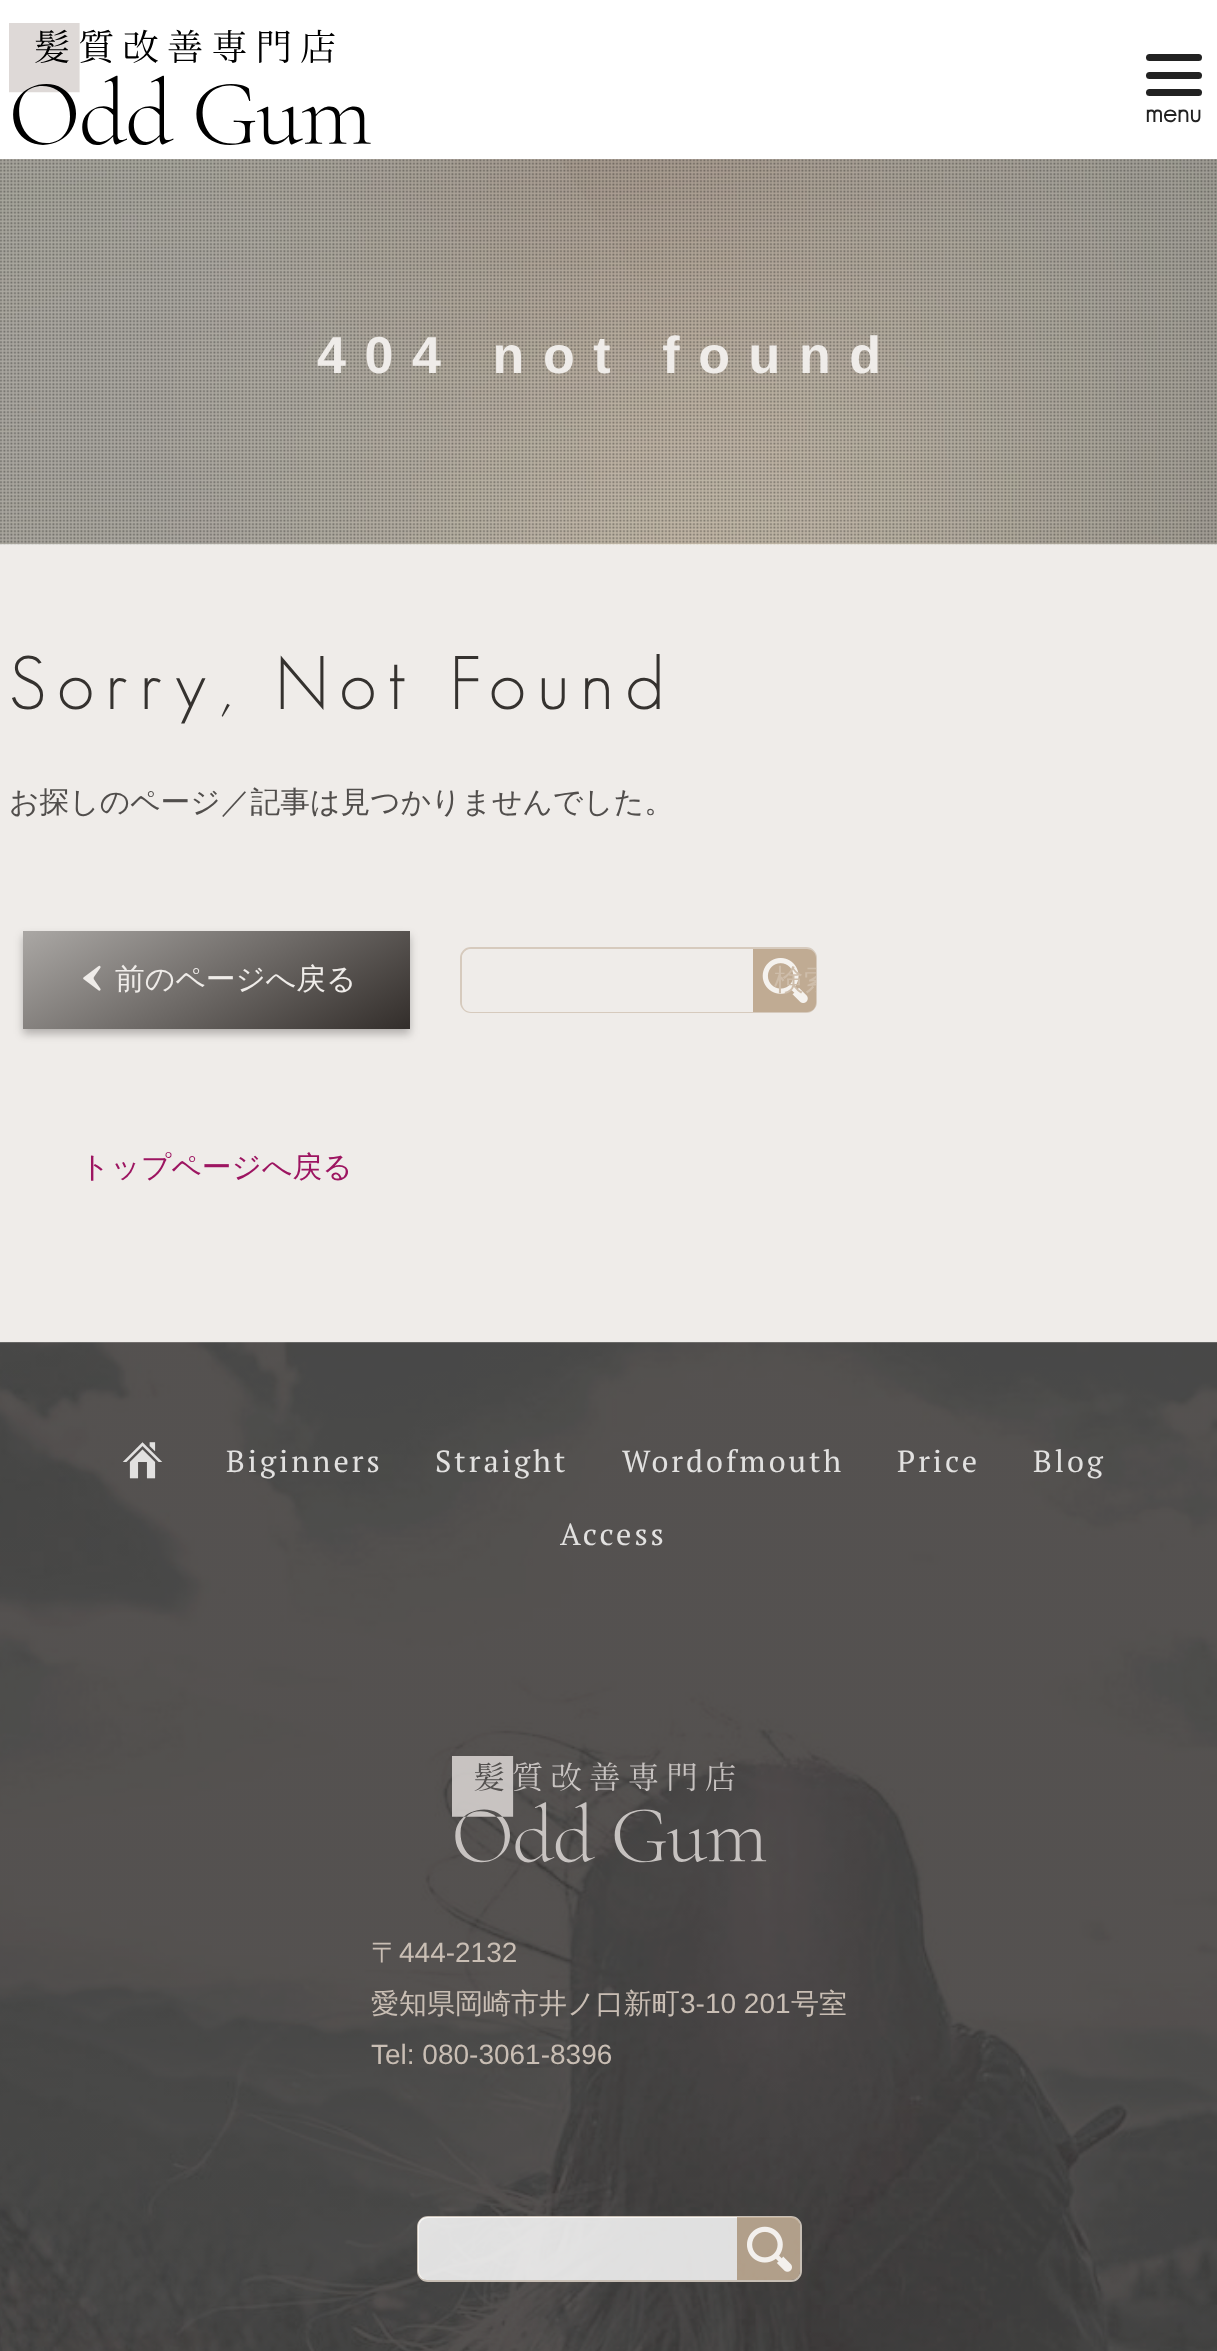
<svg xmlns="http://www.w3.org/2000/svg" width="1217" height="2351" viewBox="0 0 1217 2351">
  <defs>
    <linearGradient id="g1" gradientUnits="userSpaceOnUse" x1="147" y1="860" x2="286" y2="1100"><stop offset="0.01" stop-color="#a9a6a3"/><stop offset="0.99" stop-color="#342f2c"/></linearGradient>
    <clipPath id="clip1"><path d="M753 949h63v63H753z"/></clipPath>
  </defs>
  <rect width="100%" height="100%" fill="#fff"/>
  <image x="9" y="23" width="362" height="122" href="img/1.png"/>
  <rect x="1146" y="54" width="56" height="7" rx="3.5" fill="#222"/>
  <rect x="1146" y="72" width="56" height="7" rx="3.5" fill="#222"/>
  <rect x="1146" y="89" width="56" height="7" rx="3.5" fill="#222"/>
  <path d="M0 544h1217v798H0z" fill="#efece9"/>
  <path d="M0 159h1217v385H0z" fill="#c1bbb4"/>
  <image x="0" y="159" width="1217" height="386" href="img/2.png"/>
  <image x="0" y="159" width="1217" height="386" href="img/3.png"/>
  <path d="M23 936h387v98H23z" fill="#2926234d" filter="blur(4.5px)"/>
  <path d="M23 931h387v98H23z" fill="url(#g1)"/>
  <rect x="461" y="948" width="355" height="64" rx="10" fill="none" stroke="#d6cabd" stroke-width="2"/>
  <path d="M471 949H753V1012H471C466 1012 462 1008 462 1003V958C462 953 466 949 471 949Z" fill="#efece9"/>
  <path d="M753 949H807C812 949 816 953 816 958V1003C816 1008 812 1012 807 1012H753Z" fill="#c0ab93"/>
  <image x="762" y="958" width="46" height="45" href="img/4.png"/>
  <image x="0" y="1342" width="1217" height="1009" href="img/5.png"/>
  <image x="452" y="1756" width="315" height="107" href="img/6.png"/>
  <rect x="418" y="2217" width="383" height="64" rx="10" fill="none" stroke="#e1d6cad6" stroke-width="2"/>
  <path d="M427 2217H737V2280H427C422 2280 418 2276 418 2271V2226C418 2221 422 2217 427 2217Z" fill="#ffffffd6"/>
  <path d="M737 2217H791C796 2217 800 2221 800 2226V2271C800 2276 796 2280 791 2280H737Z" fill="#c7b299d6"/>
  <image x="747" y="2226" width="45" height="46" href="img/7.png"/>
  <text x="1145" y="122" font-family="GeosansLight" font-size="28" font-weight="bold" fill="#222">menu</text>
  <text x="317" y="373" font-family="Liberation Sans" font-size="52" font-weight="bold" letter-spacing="18.6" fill="#efece9">404 not found</text>
  <text x="9" y="709" word-spacing="2" font-family="GeosansLight" font-size="74.4" font-weight="300" letter-spacing="11.2" fill="#35322f">Sorry, Not Found</text>
  <text x="9" y="812" font-family="WenQuanYi Zen Hei" font-size="29.75" font-weight="500" fill="#514e4c">お探しのページ／記事は見つかりませんでした。</text>
  <text x="77" y="985" font-family="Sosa" font-size="29.75" fill="#efece9">‹</text>
  <text x="115" y="989" font-family="WenQuanYi Zen Hei" font-size="29.75" font-weight="500" fill="#efece9">前のページへ戻る</text>
  <g clip-path="url(#clip1)">
    <text x="774" y="990" font-family="WenQuanYi Zen Hei" font-size="29.75" font-weight="500" fill="#cebdaa">検索</text>
  </g>
  <text x="80" y="1177" font-family="WenQuanYi Zen Hei" font-size="29.75" font-weight="500" fill="#9d1561">トップページへ戻る</text>
  <text x="121" y="1470" font-family="Sosa" font-size="43" letter-spacing="3" fill="#e2e1e0">Ç</text>
  <g font-family="PT Serif" font-size="30.5" letter-spacing="3" fill="#e2e1e0">
    <text x="226" y="1472">Biginners</text>
    <text x="435" y="1472">Straight</text>
    <text x="622" y="1472">Wordofmouth</text>
    <text x="897" y="1472">Price</text>
    <text x="1033" y="1472">Blog</text>
    <text x="560" y="1545">Access</text>
  </g>
  <text x="371" y="1962" font-family="WenQuanYi Zen Hei" font-size="28" font-weight="500" fill="#c9beb4">〒</text>
  <text x="399" y="1962" font-family="Liberation Sans" font-size="28" fill="#c9beb4">444-2132</text>
  <text x="371" y="2013" font-family="WenQuanYi Zen Hei" font-size="28" font-weight="500" fill="#c9beb4">愛知県岡崎市井ノ口新町</text>
  <text x="680" y="2013" font-family="Liberation Sans" font-size="28" fill="#c9beb4">3-10 201</text>
  <text x="791" y="2013" font-family="WenQuanYi Zen Hei" font-size="28" font-weight="500" fill="#c9beb4">号室</text>
  <text x="371" y="2064" font-family="Liberation Sans" font-size="28" fill="#c9beb4">Tel: 080-3061-8396</text>
</svg>
